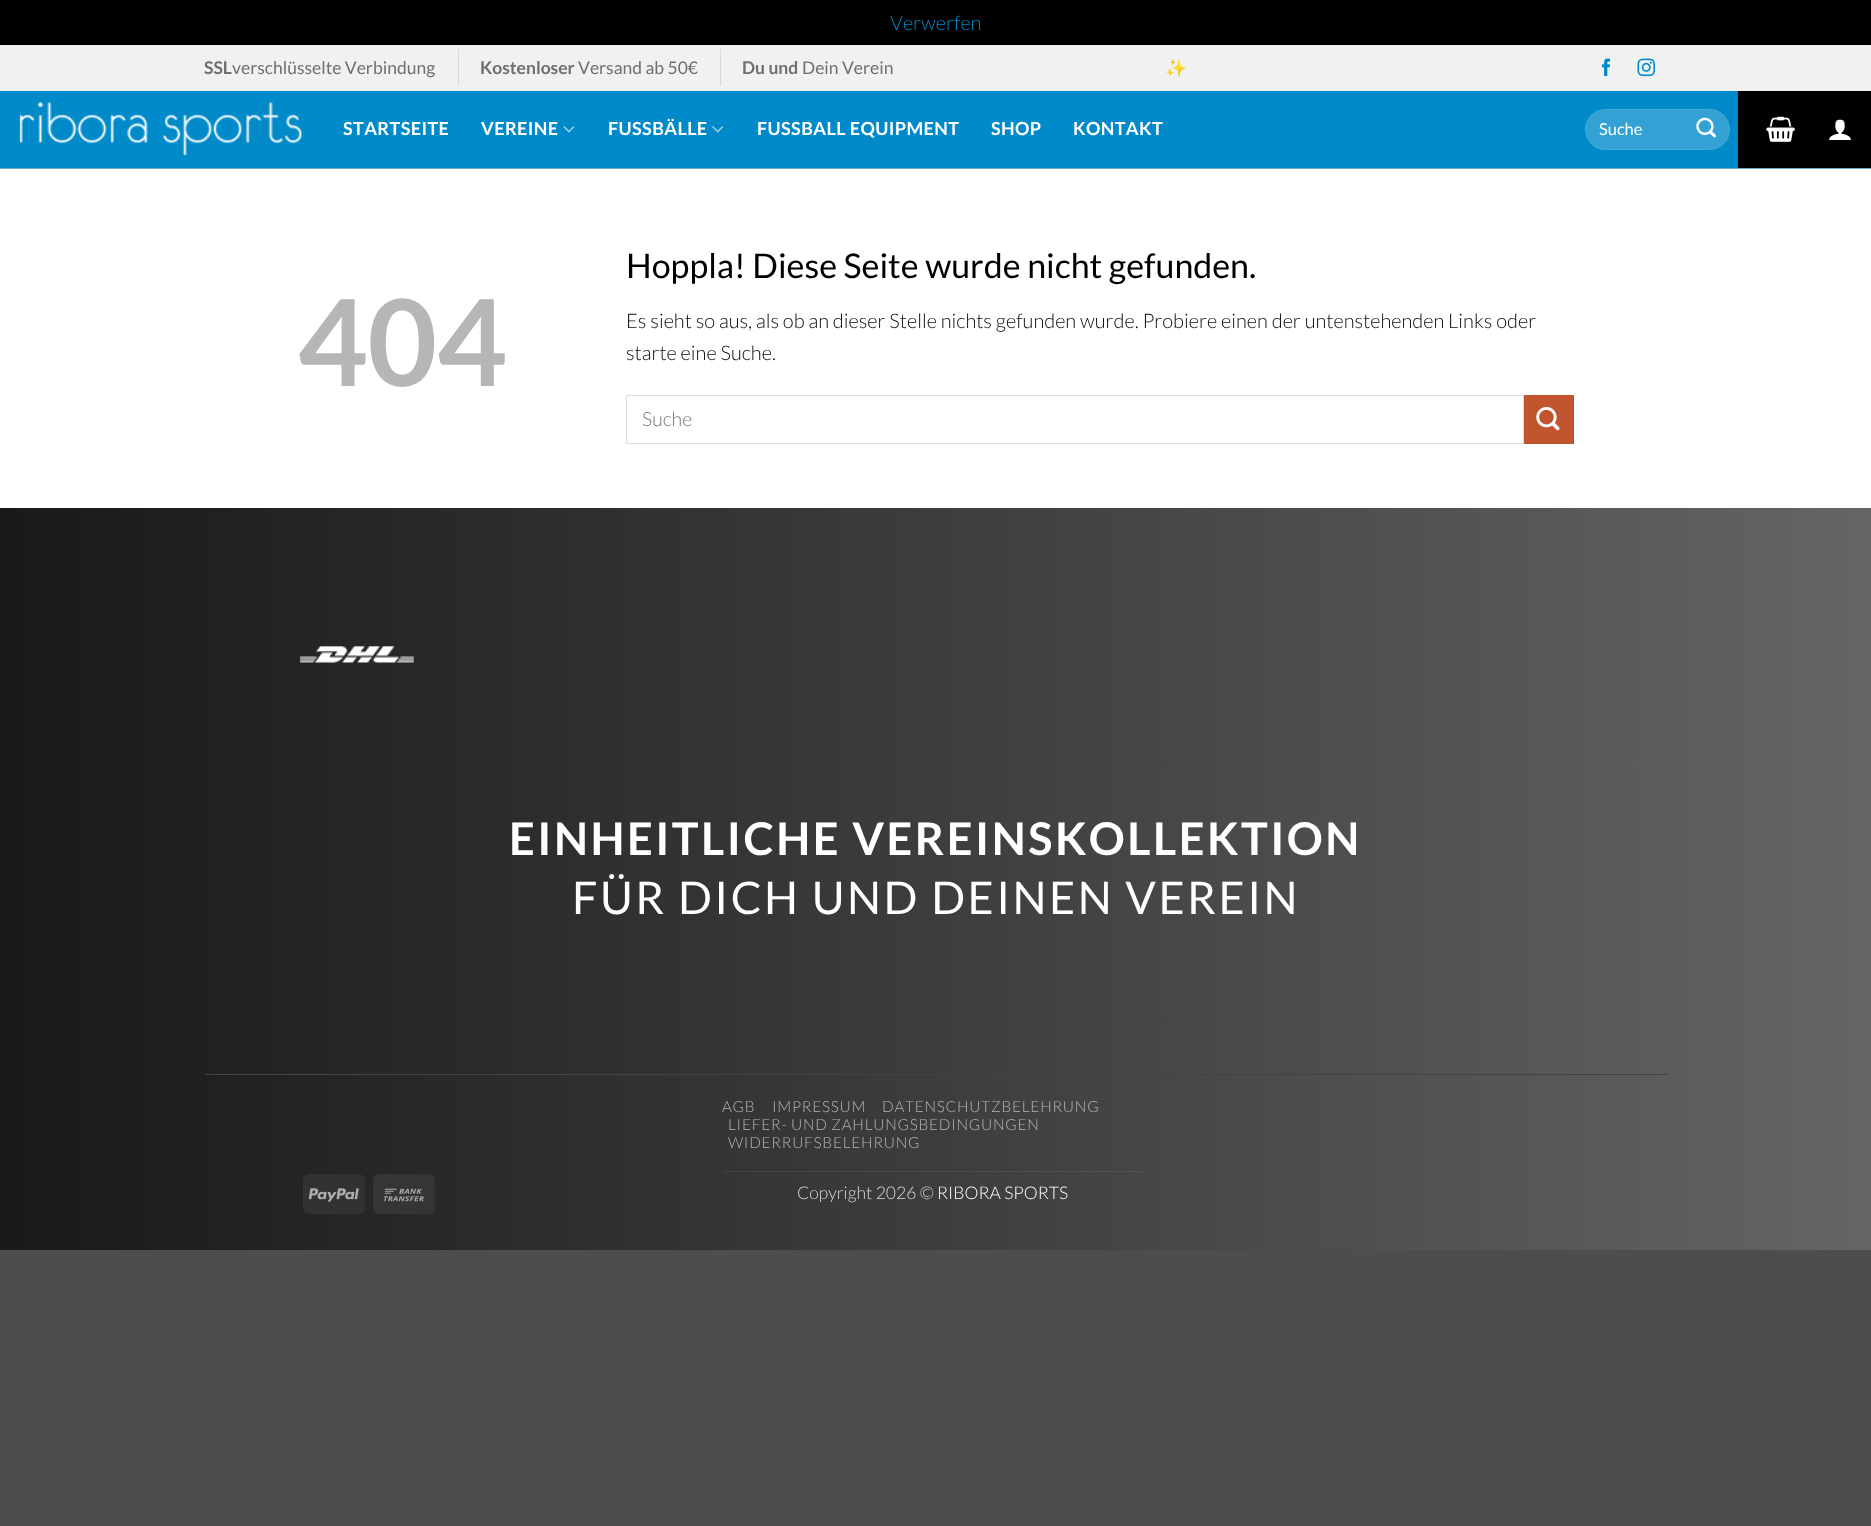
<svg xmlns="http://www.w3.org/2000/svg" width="1871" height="1526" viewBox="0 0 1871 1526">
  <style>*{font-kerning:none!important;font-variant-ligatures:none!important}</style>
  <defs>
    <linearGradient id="g1" gradientUnits="userSpaceOnUse" x1="0" y1="879" x2="1871" y2="879"><stop offset="0" stop-color="#191919"/><stop offset="0.25" stop-color="#2a2a2a"/><stop offset="0.5" stop-color="#3d3d3d"/><stop offset="0.75" stop-color="#515151"/><stop offset="1" stop-color="#656565"/></linearGradient>
    <linearGradient id="g2" gradientUnits="userSpaceOnUse" x1="0" y1="879" x2="1871" y2="879"><stop offset="0" stop-color="#272727"/><stop offset="0.25" stop-color="#373737"/><stop offset="0.5" stop-color="#494949"/><stop offset="0.75" stop-color="#5b5b5b"/><stop offset="1" stop-color="#6e6e6e"/></linearGradient>
  </defs>
  <rect width="100%" height="100%" fill="#4d4d4d"/>
  <path d="M0 0h1871v45H0z" fill="#000"/>
  <path d="M0 169h1871v339H0z" fill="#fff"/>
  <path d="M0 45h1871v46H0z" fill="#f1f1f1"/>
  <path d="M458 49h1v37H458z" fill="#d9d9d9"/>
  <path d="M720 49h1v37H720z" fill="#d9d9d9"/>
  <image x="1601" y="58" width="10" height="19" href="img/1.png"/>
  <image x="1637" y="58" width="18" height="19" href="img/2.png"/>
  <path d="M0 91h1738v77H0z" fill="#008ac9"/>
  <path d="M0 168h1871v1H0z" fill="#6badcb"/>
  <image x="19" y="102" width="283" height="54" href="img/3.png"/>
  <image x="563" y="126" width="12" height="7" href="img/4.png"/>
  <image x="712" y="126" width="12" height="7" href="img/5.png"/>
  <rect x="1585" y="109" width="145" height="41" rx="20.5" fill="#33a1d4"/>
  <rect x="1585.5" y="109.5" width="144" height="40" rx="20" fill="none" stroke="#ffffff17"/>
  <image x="1696" y="117" width="20" height="21" href="img/6.png"/>
  <path d="M1738 91h133v77H1738z" fill="#000"/>
  <image x="1766" y="116" width="29" height="26" href="img/7.png"/>
  <image x="1829" y="119" width="22" height="21" href="img/8.png"/>
  <path d="M626.5 395.5h897v48H626.5z" fill="none" stroke="#ddd"/>
  <path d="M1524.5 395.5h49v48H1524.5z" fill="#c05530" stroke="#b6512e"/>
  <image x="1536" y="406" width="24" height="25" href="img/9.png"/>
  <path d="M0 508h1871v742H0z" fill="url(#g1)"/>
  <path d="M723 1171h420v1H723z" fill="url(#g2)"/>
  <image x="299" y="646" width="115" height="17" href="img/10.png"/>
  <path d="M205 1074h1463v1H205z" fill="#434343"/>
  <rect x="303" y="1174" width="62" height="40" rx="6" fill="#323232"/>
  <image x="309" y="1188" width="50" height="14" href="img/11.png"/>
  <rect x="373" y="1174" width="62" height="40" rx="6" fill="#353535"/>
  <image x="383" y="1188" width="41" height="14" href="img/12.png"/>
  <text x="890" y="30" font-family="Lato" font-size="20" font-weight="300" fill="#008ac9">Verwerfen</text>
  <text x="204" y="74" font-family="Lato" font-size="17.5" font-weight="bold" fill="#6f6f6f">SSL</text>
  <text x="232" y="74" font-family="Lato" font-size="17.5" fill="#6f6f6f">verschlüsselte Verbindung</text>
  <text x="480" y="74" font-family="Lato" font-size="17.5" font-weight="bold" fill="#6f6f6f">Kostenloser</text>
  <text x="578" y="74" font-family="Lato" font-size="17.5" fill="#6f6f6f">Versand ab 50€</text>
  <text x="742" y="74" font-family="Lato" font-size="17.5" font-weight="bold" fill="#6f6f6f">Du und</text>
  <text x="802" y="74" font-family="Lato" font-size="17.5" fill="#6f6f6f">Dein Verein</text>
  <text x="1165" y="74" font-family="Noto Color Emoji" font-size="17.5" font-weight="bold" fill="#008ac9">✨</text>
  <g font-family="Lato" font-size="18" font-weight="bold" letter-spacing="0.4" fill="#fff">
    <text x="343" y="135">STARTSEITE</text>
    <text x="481" y="135">VEREINE</text>
    <text x="608" y="135">FUSSBÄLLE</text>
    <text x="757" y="135">FUSSBALL EQUIPMENT</text>
    <text x="991" y="135">SHOP</text>
    <text x="1073" y="135">KONTAKT</text>
  </g>
  <text x="1599" y="135" font-family="Lato" font-size="16.5" fill="#fff">Suche</text>
  <text x="298" y="386" font-family="Lato" font-size="120" font-weight="bold" fill="#b6b6b6">404</text>
  <text x="626" y="278" font-family="Lato" font-size="34" fill="#000">Hoppla! Diese Seite wurde nicht gefunden.</text>
  <g font-family="Lato" font-size="20" font-weight="300" fill="#0a0a0a">
    <text x="626" y="328">Es sieht so aus, als ob an dieser Stelle nichts gefunden wurde. Probiere einen der untenstehenden Links oder</text>
    <text x="626" y="360">starte eine Suche.</text>
  </g>
  <text x="642" y="426" font-family="Lato" font-size="19.5" font-weight="300" fill="#757575">Suche</text>
  <text x="509" y="855" font-family="Lato" font-size="45" font-weight="bold" letter-spacing="2.5" fill="#fff">EINHEITLICHE VEREINSKOLLEKTION</text>
  <text x="572" y="914" font-family="Lato" font-size="45" letter-spacing="2.5" fill="#fff">FÜR DICH UND DEINEN VEREIN</text>
  <g font-family="Lato" font-size="15.3" font-weight="300" letter-spacing="0.75" fill="#b6b6b6">
    <text x="722" y="1112">AGB</text>
    <text x="772" y="1112">IMPRESSUM</text>
    <text x="882" y="1112">DATENSCHUTZBELEHRUNG</text>
    <text x="728" y="1130">LIEFER- UND ZAHLUNGSBEDINGUNGEN</text>
    <text x="728" y="1148">WIDERRUFSBELEHRUNG</text>
  </g>
  <text x="797" y="1199" font-family="Lato" font-size="17.5" font-weight="300" fill="#d8d8d8">Copyright 2026 ©</text>
  <text x="937" y="1199" font-family="Lato" font-size="17.5" font-weight="300" fill="#fff">RIBORA SPORTS</text>
</svg>
